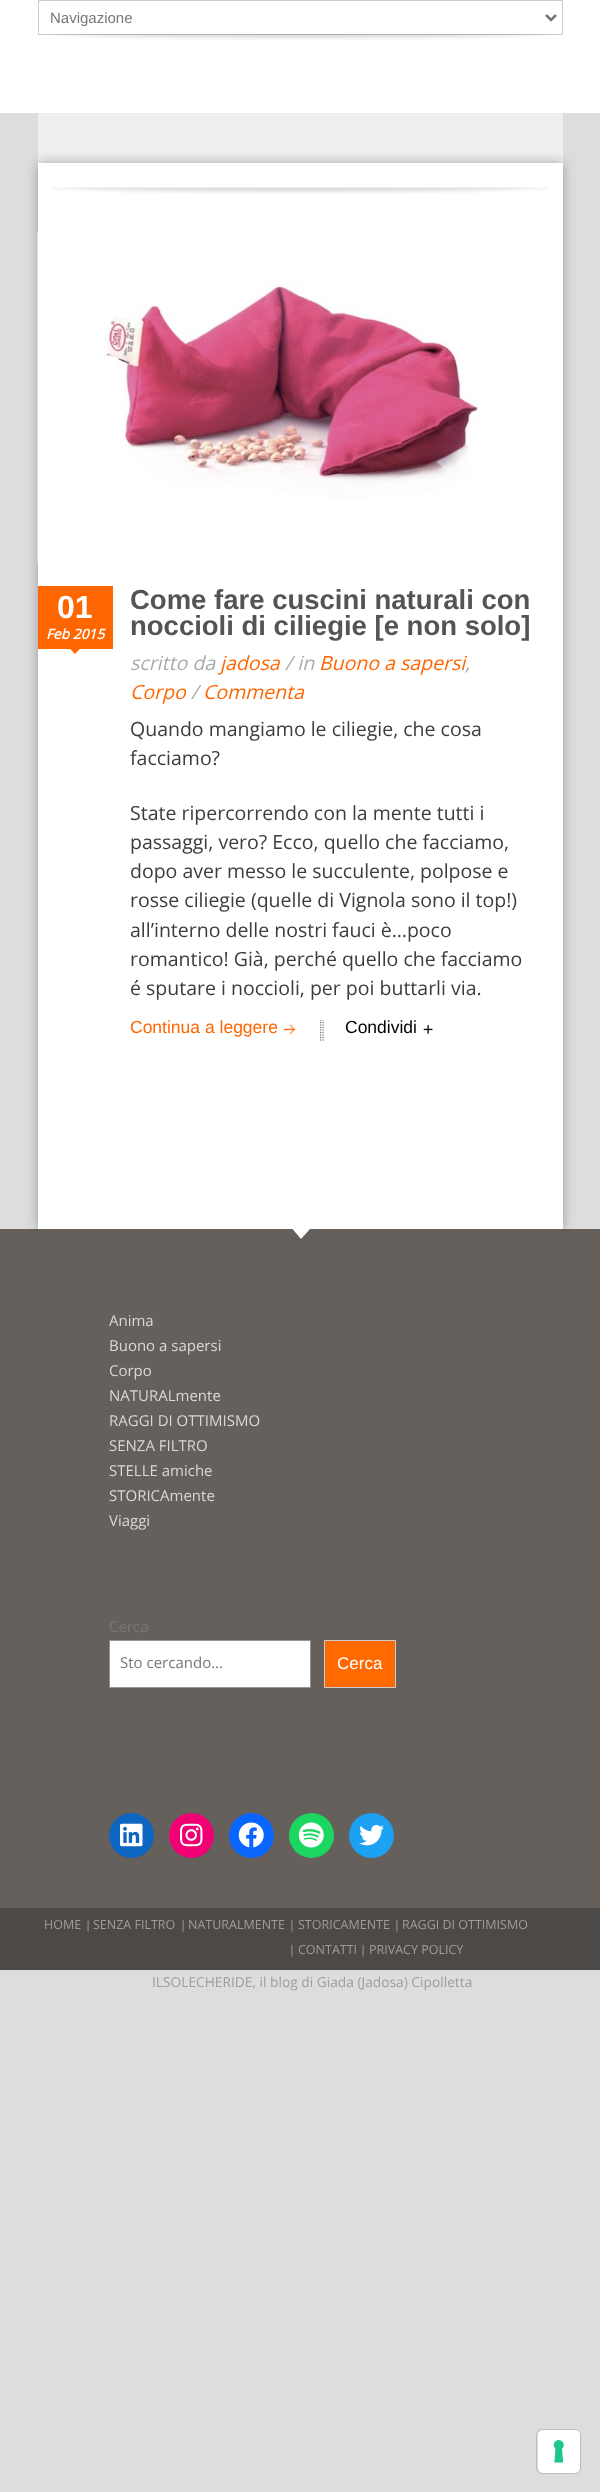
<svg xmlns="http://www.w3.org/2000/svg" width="600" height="2492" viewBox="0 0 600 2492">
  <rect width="100%" height="100%" fill="#ddd"/>
  <path d="M38 113h525v50H38z" fill="#eee"/>
  <path d="M0 0h600v113H0z" fill="#fff"/>
  <path d="M38.5 0.5h524v34H38.5z" fill="none" stroke="#ccc"/>
  <path d="M546 15L551 20L556 15" fill="none" stroke="#777" stroke-width="2.5"/>
  <image x="50" y="34" width="500" height="6" href="img/1.png"/>
  <path d="M0 1229h600v679H0z" fill="#65605c"/>
  <path d="M38 163h525v1066H38z" fill="#0000004d" filter="blur(6px)"/>
  <path d="M38 163h525v1066H38z" fill="#fff"/>
  <image x="52" y="187" width="496" height="7" href="img/2.png"/>
  <image x="37" y="232" width="442" height="331" href="img/3.png"/>
  <path d="M38 586h75v63H38z" fill="#f60"/>
  <path d="M67.5 646H82.5L75 654Z" fill="#f60"/>
  <image x="283" y="1024" width="13" height="10" href="img/4.png"/>
  <image x="320" y="1020" width="4" height="22" href="img/5.png"/>
  <image x="423" y="1024" width="10" height="10" href="img/6.png"/>
  <path d="M38 1229h525v8H38z" fill="#65605c"/>
  <path d="M292.5 1229H310L301 1239Z" fill="#fff"/>
  <path d="M109.5 1640.5h201v47H109.5z" fill="#fff" stroke="#949494"/>
  <path d="M324.5 1640.5h71v47H324.5z" fill="#ff6900" stroke="#ccc"/>
  <circle cx="131.5" cy="1835.5" r="22.5" fill="#0d66c2"/>
  <image x="120" y="1823" width="23" height="24" href="img/7.png"/>
  <circle cx="191.5" cy="1835.5" r="22.5" fill="#f00075"/>
  <image x="180" y="1823" width="23" height="24" href="img/8.png"/>
  <circle cx="251.5" cy="1835.5" r="22.5" fill="#0866ff"/>
  <image x="238" y="1822" width="26" height="26" href="img/9.png"/>
  <circle cx="311.5" cy="1835.5" r="22.5" fill="#1bd760"/>
  <image x="298" y="1822" width="26" height="26" href="img/10.png"/>
  <circle cx="371.5" cy="1835.5" r="22.5" fill="#1da1f2"/>
  <image x="359" y="1825" width="25" height="21" href="img/11.png"/>
  <path d="M0 1908h600v62H0z" fill="#4d4946"/>
  <image x="87" y="1919" width="2" height="14" href="img/12.png"/>
  <image x="182" y="1919" width="2" height="14" href="img/12.png"/>
  <image x="291" y="1919" width="2" height="14" href="img/13.png"/>
  <image x="396" y="1919" width="2" height="14" href="img/13.png"/>
  <image x="291" y="1944" width="2" height="14" href="img/13.png"/>
  <image x="362" y="1944" width="2" height="14" href="img/12.png"/>
  <rect x="536.5" y="2429.5" width="44" height="44" rx="5.5" fill="none" stroke="#bcbcbc"/>
  <rect x="538" y="2430" width="42" height="43" rx="5" fill="#fff"/>
  <image x="553" y="2440" width="11" height="23" href="img/14.png"/>
  <text x="50" y="23" font-family="Liberation Sans" font-size="15" fill="#777">Navigazione</text>
  <text x="57" y="618" font-family="Liberation Sans" font-size="32" font-weight="bold" fill="#fff">01</text>
  <text x="46" y="639" font-family="Open Sans" font-size="13.75" font-weight="bold" font-style="italic" fill="#fff">Feb 2015</text>
  <g font-family="Liberation Sans" font-size="27.5" font-weight="bold" fill="#545454">
    <text x="130" y="609">Come fare cuscini naturali con</text>
    <text x="130" y="635">noccioli di ciliegie [e non solo]</text>
  </g>
  <text x="130" y="670" font-family="Open Sans" font-size="19.5" font-style="italic" fill="#aaa">scritto da</text>
  <text x="220" y="670" font-family="Open Sans" font-size="19.5" font-style="italic" fill="#f60">jadosa</text>
  <text x="285" y="670" font-family="Open Sans" font-size="19.5" font-style="italic" fill="#aaa">/ in</text>
  <text x="319" y="670" font-family="Open Sans" font-size="19.5" font-style="italic" fill="#f60">Buono a sapersi</text>
  <text x="465" y="670" font-family="Open Sans" font-size="19.5" font-style="italic" fill="#aaa">,</text>
  <text x="130" y="699" font-family="Open Sans" font-size="19.5" font-style="italic" fill="#f60">Corpo</text>
  <text x="191" y="699" font-family="Open Sans" font-size="19.5" font-style="italic" fill="#aaa">/</text>
  <text x="203" y="699" font-family="Open Sans" font-size="19.5" font-style="italic" fill="#f60">Commenta</text>
  <g font-family="Open Sans" font-size="19.5" fill="#3c3c3c">
    <text x="130" y="736">Quando mangiamo le ciliegie, che cosa</text>
    <text x="130" y="765">facciamo?</text>
    <text x="130" y="820">State ripercorrendo con la mente tutti i</text>
    <text x="130" y="849">passaggi, vero? Ecco, quello che facciamo,</text>
    <text x="130" y="878">dopo aver messo le succulente, polpose e</text>
    <text x="130" y="907">rosse ciliegie (quelle di Vignola sono il top!)</text>
    <text x="130" y="937">all’interno delle nostri fauci è…poco</text>
    <text x="130" y="966">romantico! Già, perché quello che facciamo</text>
    <text x="130" y="995">é sputare i noccioli, per poi buttarli via.</text>
  </g>
  <text x="130" y="1033" font-family="Liberation Sans" font-size="17.5" fill="#f60">Continua a leggere</text>
  <text x="345" y="1033" font-family="Liberation Sans" font-size="17.5" fill="#000">Condividi</text>
  <g font-family="Open Sans" font-size="15" fill="#d9d8d7">
    <text x="109" y="1326">Anima</text>
    <text x="109" y="1351">Buono a sapersi</text>
    <text x="109" y="1376">Corpo</text>
    <text x="109" y="1401">NATURALmente</text>
    <text x="109" y="1426">RAGGI DI OTTIMISMO</text>
    <text x="109" y="1451">SENZA FILTRO</text>
    <text x="109" y="1476">STELLE amiche</text>
    <text x="109" y="1501">STORICAmente</text>
    <text x="109" y="1526">Viaggi</text>
  </g>
  <g font-family="Open Sans" font-size="15" fill="#777">
    <text x="109" y="1632">Cerca</text>
    <text x="120" y="1668">Sto cercando...</text>
  </g>
  <text x="337" y="1669" font-family="Liberation Sans" font-size="17" fill="#fff">Cerca</text>
  <g font-family="Open Sans" font-size="12.5" fill="#9f9d9b">
    <text x="44" y="1929">HOME</text>
    <text x="93" y="1929">SENZA FILTRO</text>
    <text x="188" y="1929">NATURALMENTE</text>
    <text x="298" y="1929">STORICAMENTE</text>
    <text x="402" y="1929">RAGGI DI OTTIMISMO</text>
    <text x="298" y="1954">CONTATTI</text>
    <text x="369" y="1954">PRIVACY POLICY</text>
  </g>
  <text x="152" y="1987" font-family="Open Sans" font-size="13.75" fill="#9f9d9b">ILSOLECHERIDE, il blog di Giada (Jadosa) Cipolletta</text>
</svg>
